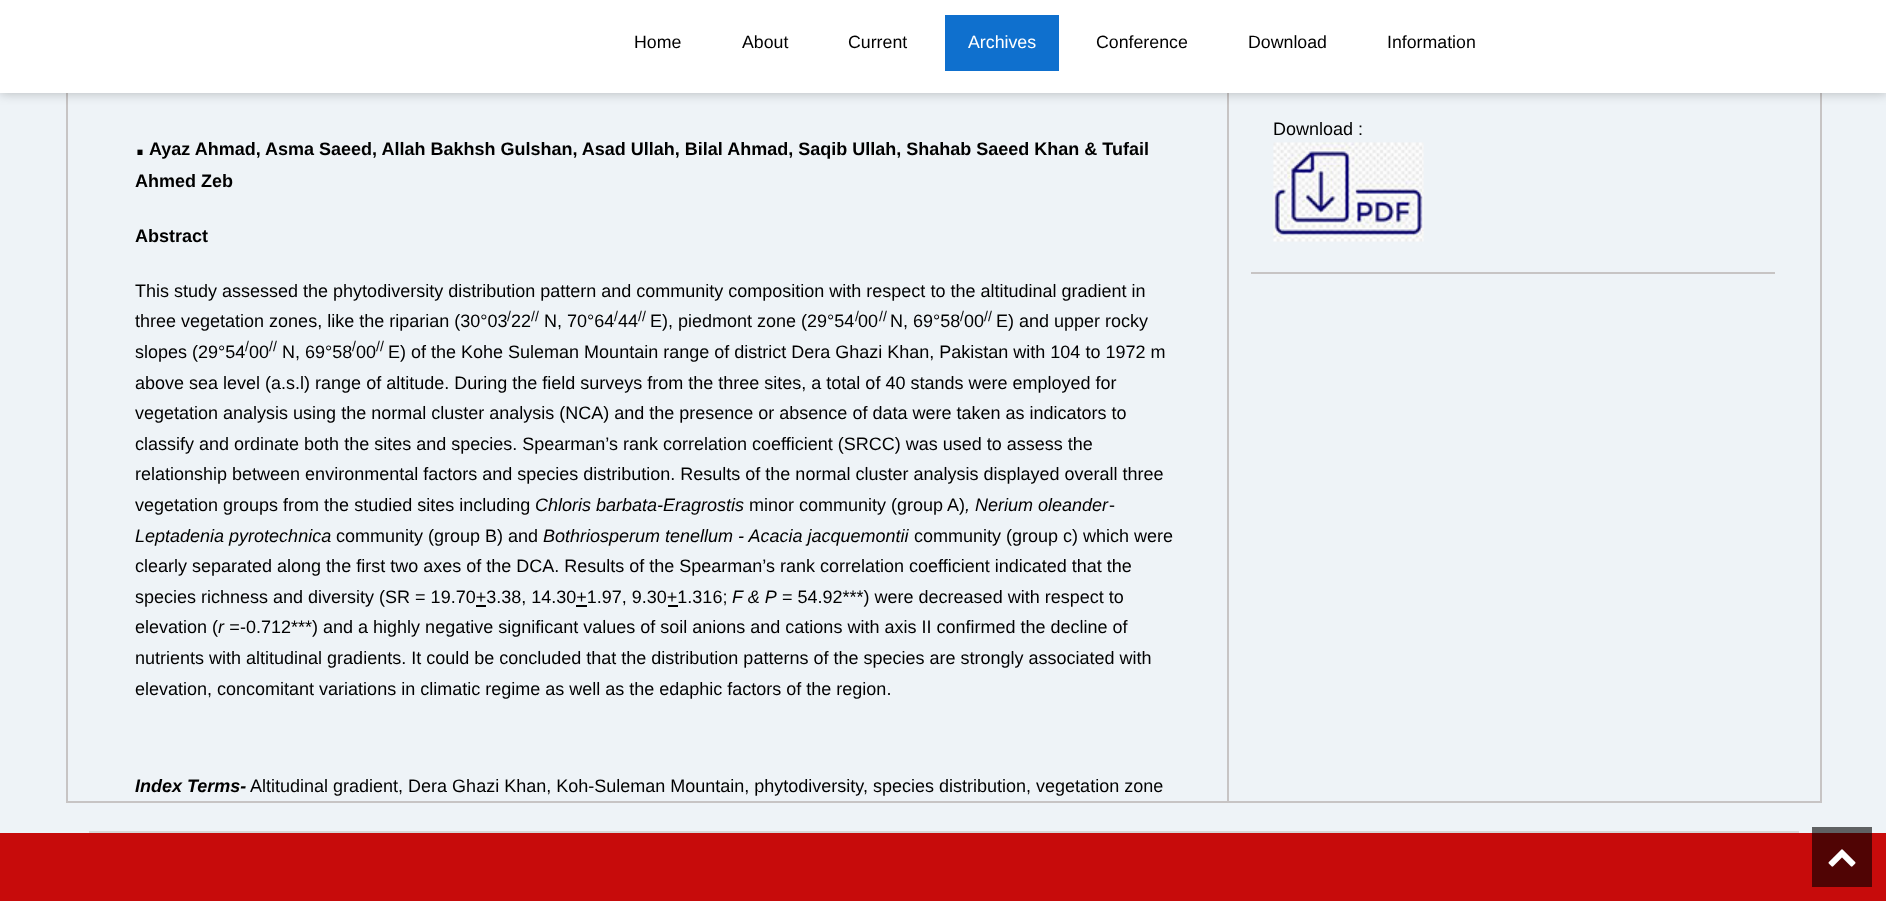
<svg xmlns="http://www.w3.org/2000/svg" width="1886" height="901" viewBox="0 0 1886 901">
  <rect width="100%" height="100%" fill="#c70b0b"/>
  <path d="M0 93h1886v740H0z" fill="#eef3f7"/>
  <path d="M1820 87h2v716H1820z" fill="#c7c4c4"/>
  <path d="M66 801h1755v2H66z" fill="#c7c4c4"/>
  <path d="M66 87h2v716H66z" fill="#c7c4c4"/>
  <path d="M1227 87h2v714H1227z" fill="#c7c4c4"/>
  <path d="M0 0h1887v93H0z" fill="#00000040" filter="blur(6px)"/>
  <path d="M0 0h1886v93H0z" fill="#fff"/>
  <path d="M945 15h114v56H945z" fill="#0f70ce"/>
  <path d="M1812 827h60v6H1812z" fill="#5f6163"/>
  <path d="M1251 272h524v2H1251z" fill="#c7c4c4"/>
  <image x="1273" y="142" width="151" height="100" href="img/1.png"/>
  <path d="M476 605h10v2H476z" fill="#000"/>
  <path d="M576 605h11v2H576z" fill="#000"/>
  <path d="M668 605h10v2H668z" fill="#000"/>
  <path d="M89 831h1710v2H89z" fill="#d7d7d7"/>
  <path d="M1812 833h60v54H1812z" fill="#500404"/>
  <image x="1828" y="849" width="28" height="18" href="img/2.png"/>
  <g font-family="Liberation Sans" font-size="17.75" fill="#000">
    <text x="634" y="48">Home</text>
    <text x="742" y="48">About</text>
    <text x="848" y="48">Current</text>
  </g>
  <text x="968" y="48" font-family="Liberation Sans" font-size="17.75" fill="#fff">Archives</text>
  <g font-family="Liberation Sans" font-size="17.75" fill="#000">
    <text x="1096" y="48">Conference</text>
    <text x="1248" y="48">Download</text>
    <text x="1387" y="48">Information</text>
  </g>
  <text x="1273" y="135" font-family="Liberation Sans" font-size="18" fill="#000">Download :</text>
  <text x="135" y="155" font-family="Liberation Sans" font-size="36" font-weight="bold" fill="#000">.</text>
  <g font-family="Liberation Sans" font-size="18" font-weight="bold" fill="#000">
    <text x="149" y="155">Ayaz Ahmad, Asma Saeed, Allah Bakhsh Gulshan, Asad Ullah, Bilal Ahmad, Saqib Ullah, Shahab Saeed Khan &amp; Tufail</text>
    <text x="135" y="187">Ahmed Zeb</text>
    <text x="135" y="242">Abstract</text>
  </g>
  <g font-family="Liberation Sans" font-size="18" fill="#000">
    <text x="135" y="297">This study assessed the phytodiversity distribution pattern and community composition with respect to the altitudinal gradient in</text>
    <text x="135" y="327">three vegetation zones, like the riparian (30°03</text>
  </g>
  <text x="507" y="321" font-family="Liberation Sans" font-size="14" fill="#000">/</text>
  <text x="511" y="327" font-family="Liberation Sans" font-size="18" fill="#000">22</text>
  <text x="531" y="321" font-family="Liberation Sans" font-size="14" fill="#000">//</text>
  <text x="544" y="327" font-family="Liberation Sans" font-size="18" fill="#000">N, 70°64</text>
  <text x="614" y="321" font-family="Liberation Sans" font-size="14" fill="#000">/</text>
  <text x="618" y="327" font-family="Liberation Sans" font-size="18" fill="#000">44</text>
  <text x="638" y="321" font-family="Liberation Sans" font-size="14" fill="#000">//</text>
  <text x="650" y="327" font-family="Liberation Sans" font-size="18" fill="#000">E), piedmont zone (29°54</text>
  <text x="855" y="321" font-family="Liberation Sans" font-size="14" fill="#000">/</text>
  <text x="858" y="327" font-family="Liberation Sans" font-size="18" fill="#000">00</text>
  <text x="879" y="321" font-family="Liberation Sans" font-size="14" fill="#000">//</text>
  <text x="890" y="327" font-family="Liberation Sans" font-size="18" fill="#000">N, 69°58</text>
  <text x="960" y="321" font-family="Liberation Sans" font-size="14" fill="#000">/</text>
  <text x="964" y="327" font-family="Liberation Sans" font-size="18" fill="#000">00</text>
  <text x="984" y="321" font-family="Liberation Sans" font-size="14" fill="#000">//</text>
  <g font-family="Liberation Sans" font-size="18" fill="#000">
    <text x="996" y="327">E) and upper rocky</text>
    <text x="135" y="358">slopes (29°54</text>
  </g>
  <text x="245" y="351" font-family="Liberation Sans" font-size="14" fill="#000">/</text>
  <text x="249" y="358" font-family="Liberation Sans" font-size="18" fill="#000">00</text>
  <text x="269" y="351" font-family="Liberation Sans" font-size="14" fill="#000">//</text>
  <text x="282" y="358" font-family="Liberation Sans" font-size="18" fill="#000">N, 69°58</text>
  <text x="352" y="351" font-family="Liberation Sans" font-size="14" fill="#000">/</text>
  <text x="356" y="358" font-family="Liberation Sans" font-size="18" fill="#000">00</text>
  <text x="376" y="351" font-family="Liberation Sans" font-size="14" fill="#000">//</text>
  <g font-family="Liberation Sans" font-size="18" fill="#000">
    <text x="388" y="358">E) of the Kohe Suleman Mountain range of district Dera Ghazi Khan, Pakistan with 104 to 1972 m</text>
    <text x="135" y="389">above sea level (a.s.l) range of altitude. During the field surveys from the three sites, a total of 40 stands were employed for</text>
    <text x="135" y="419">vegetation analysis using the normal cluster analysis (NCA) and the presence or absence of data were taken as indicators to</text>
    <text x="135" y="450">classify and ordinate both the sites and species. Spearman’s rank correlation coefficient (SRCC) was used to assess the</text>
    <text x="135" y="480">relationship between environmental factors and species distribution. Results of the normal cluster analysis displayed overall three</text>
    <text x="135" y="511">vegetation groups from the studied sites including</text>
  </g>
  <text x="535" y="511" font-family="Liberation Sans" font-size="18" font-style="italic" fill="#000">Chloris barbata-Eragrostis</text>
  <text x="749" y="511" font-family="Liberation Sans" font-size="18" fill="#000">minor community (group A)</text>
  <text x="965" y="511" font-family="Liberation Sans" font-size="18" font-style="italic" fill="#000">, Nerium oleander</text>
  <text x="1109" y="511" font-family="Liberation Sans" font-size="18" fill="#000">-</text>
  <text x="135" y="542" font-family="Liberation Sans" font-size="18" font-style="italic" fill="#000">Leptadenia pyrotechnica</text>
  <text x="336" y="542" font-family="Liberation Sans" font-size="18" fill="#000">community (group B) and</text>
  <text x="543" y="542" font-family="Liberation Sans" font-size="18" font-style="italic" fill="#000">Bothriosperum tenellum - Acacia jacquemontii</text>
  <g font-family="Liberation Sans" font-size="18" fill="#000">
    <text x="914" y="542">community (group c) which were</text>
    <text x="135" y="572">clearly separated along the first two axes of the DCA. Results of the Spearman’s rank correlation coefficient indicated that the</text>
    <text x="135" y="603">species richness and diversity (SR = 19.70+3.38, 14.30+1.97, 9.30+1.316;</text>
  </g>
  <text x="732" y="603" font-family="Liberation Sans" font-size="18" font-style="italic" fill="#000">F &amp; P</text>
  <g font-family="Liberation Sans" font-size="18" fill="#000">
    <text x="782" y="603">= 54.92***) were decreased with respect to</text>
    <text x="135" y="633">elevation (</text>
  </g>
  <text x="218" y="633" font-family="Liberation Sans" font-size="18" font-style="italic" fill="#000">r =</text>
  <g font-family="Liberation Sans" font-size="18" fill="#000">
    <text x="240" y="633">-0.712***) and a highly negative significant values of soil anions and cations with axis II confirmed the decline of</text>
    <text x="135" y="664">nutrients with altitudinal gradients. It could be concluded that the distribution patterns of the species are strongly associated with</text>
    <text x="135" y="695">elevation, concomitant variations in climatic regime as well as the edaphic factors of the region.</text>
  </g>
  <text x="135" y="792" font-family="Liberation Sans" font-size="18" font-weight="bold" font-style="italic" fill="#000">Index Terms-</text>
  <text x="250" y="792" font-family="Liberation Sans" font-size="18" fill="#000">Altitudinal gradient, Dera Ghazi Khan, Koh-Suleman Mountain, phytodiversity, species distribution, vegetation zone</text>
</svg>
